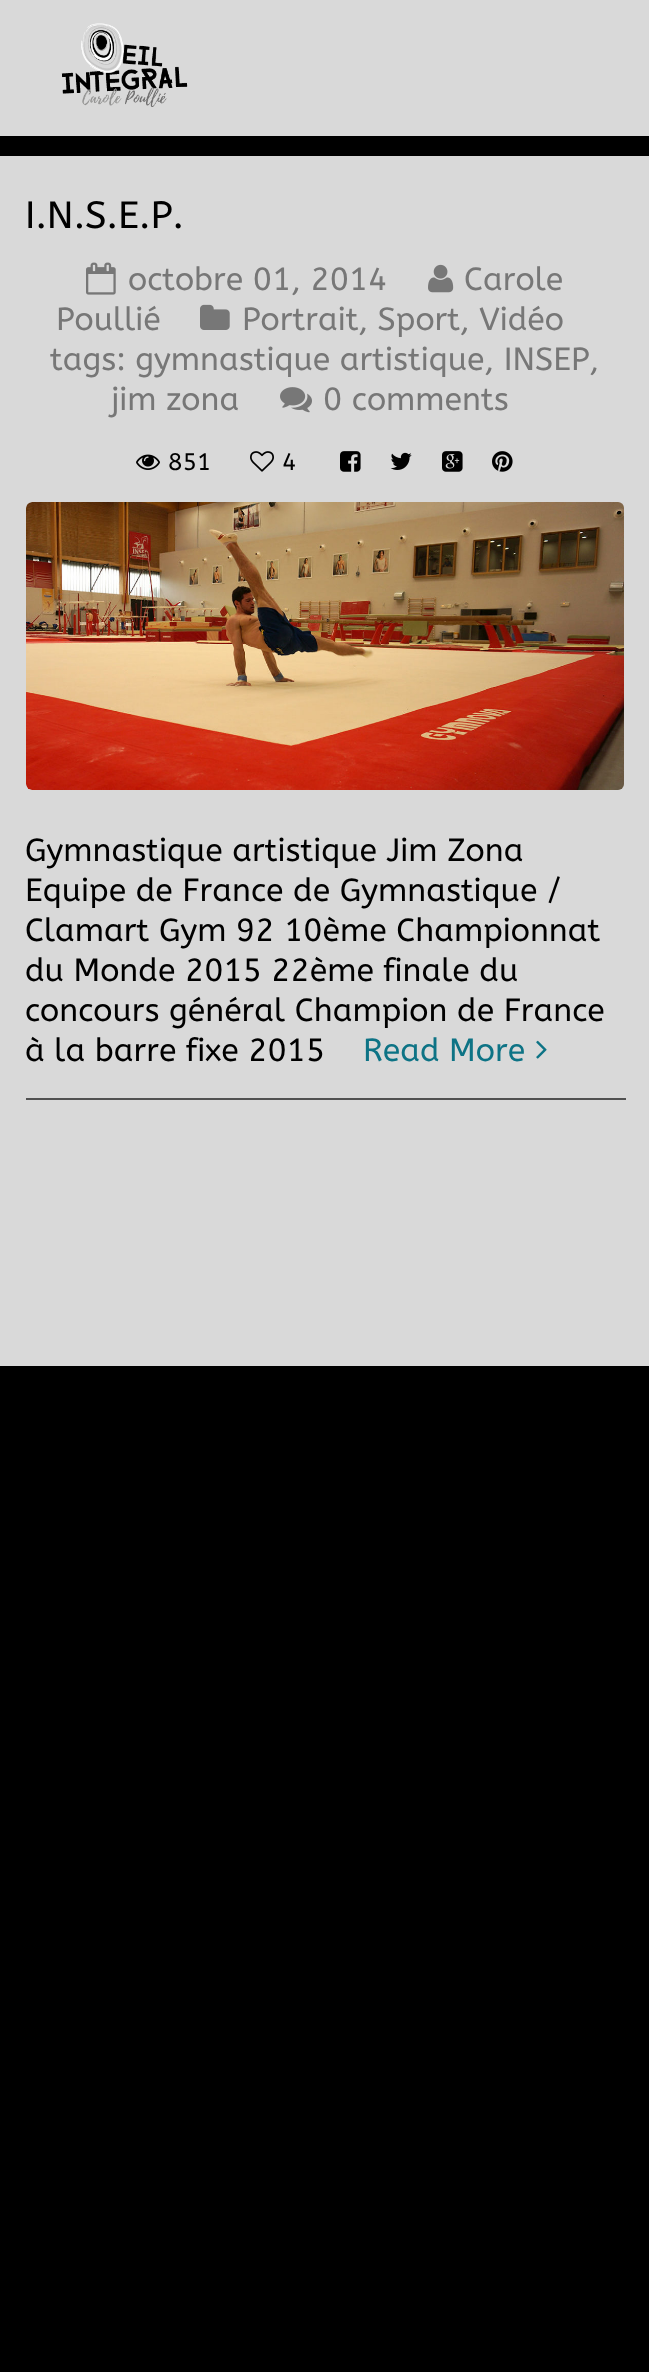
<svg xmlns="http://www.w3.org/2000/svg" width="649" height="2372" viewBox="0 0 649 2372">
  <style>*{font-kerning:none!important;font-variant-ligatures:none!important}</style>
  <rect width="100%" height="100%" fill="#000"/>
  <path d="M0 0h649v136H0z" fill="#d9d9d9"/>
  <image x="61" y="23" width="127" height="84" href="img/1.png"/>
  <path d="M0 156h649v1210H0z" fill="#d9d9d9"/>
  <path d="M26 1098h600v2H26z" fill="#515151"/>
  <image x="428" y="264" width="26" height="29" href="img/2.png"/>
  <image x="86" y="262" width="30" height="33" href="img/3.png"/>
  <image x="200" y="304" width="30" height="26" href="img/4.png"/>
  <image x="280" y="387" width="32" height="26" href="img/5.png"/>
  <image x="136" y="454" width="24" height="16" href="img/6.png"/>
  <image x="250" y="451" width="24" height="21" href="img/7.png"/>
  <image x="340" y="451" width="21" height="21" href="img/8.png"/>
  <image x="390" y="452" width="22" height="18" href="img/9.png"/>
  <image x="442" y="451" width="21" height="21" href="img/10.png"/>
  <image x="492" y="451" width="21" height="21" href="img/11.png"/>
  <image x="26" y="502" width="598" height="288" href="img/12.png"/>
  <image x="536" y="1040" width="11" height="19" href="img/13.png"/>
  <text x="25" y="228" font-family="ABeeZee" font-size="38" fill="#000">I.N.S.E.P.</text>
  <g font-family="ABeeZee" font-size="32" fill="#777">
    <text x="464" y="290">Carole</text>
    <text x="56" y="330">Poullié</text>
    <text x="128" y="290">octobre 01, 2014</text>
    <text x="242" y="330">Portrait, Sport, Vidéo</text>
    <text x="50" y="370">tags: gymnastique artistique, INSEP,</text>
    <text x="111" y="410">jim zona</text>
    <text x="323" y="410">0 comments</text>
  </g>
  <g font-family="ABeeZee" font-size="24" fill="#000">
    <text x="168" y="470">851</text>
    <text x="282" y="470">4</text>
  </g>
  <g font-family="ABeeZee" font-size="32" fill="#000">
    <text x="25" y="861">Gymnastique artistique Jim Zona</text>
    <text x="25" y="901">Equipe de France de Gymnastique /</text>
    <text x="25" y="941">Clamart Gym 92 10ème Championnat</text>
    <text x="25" y="981">du Monde 2015 22ème finale du</text>
    <text x="25" y="1021">concours général Champion de France</text>
    <text x="25" y="1061" xml:space="preserve">à la barre fixe 2015   </text>
  </g>
  <text x="363" y="1061" font-family="ABeeZee" font-size="32" fill="#0d7385">Read More</text>
</svg>
